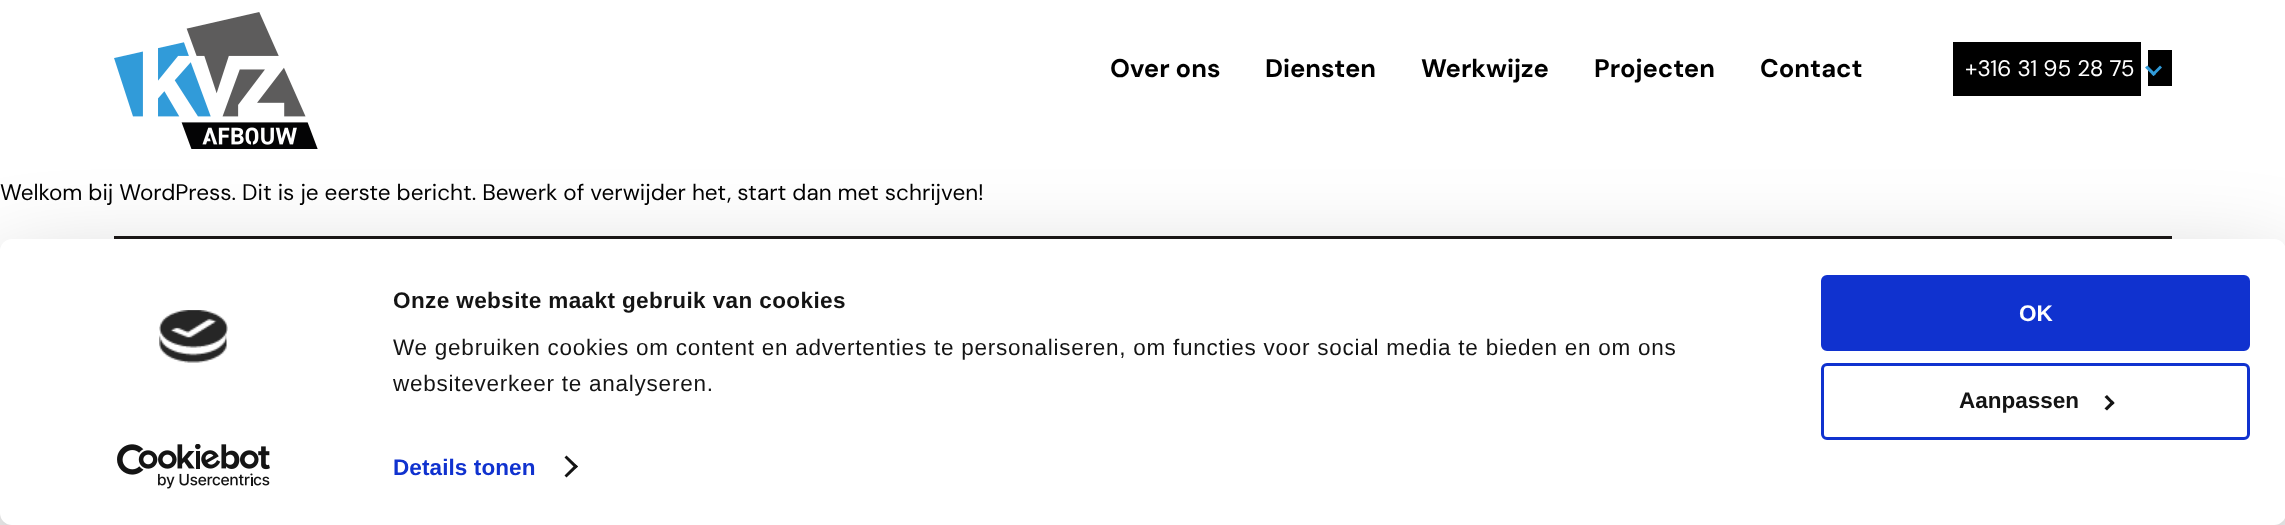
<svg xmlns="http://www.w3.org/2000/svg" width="2285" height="525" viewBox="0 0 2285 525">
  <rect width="100%" height="100%" fill="#fff"/>
  <image x="114" y="12" width="204" height="137" href="img/1.png"/>
  <path d="M1953 42h188v54H1953z" fill="#000"/>
  <path d="M2148 50h24v36H2148z" fill="#000"/>
  <path d="M2160 65.5L2162 67.5L2153.5 76L2151.5 74Z" fill="#319bd9"/>
  <path d="M2147.5 65.5L2156 74L2153.5 76L2145 67.5Z" fill="#319bd9"/>
  <path d="M114 236h2058v3H114z" fill="#1c1918"/>
  <rect y="284" width="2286" height="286" rx="12" fill="#0000004d" filter="blur(52.5px)"/>
  <rect y="239" width="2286" height="286" rx="12" fill="#fff"/>
  <image x="159" y="310" width="69" height="53" href="img/2.png"/>
  <image x="117" y="444" width="153" height="45" href="img/3.png"/>
  <path d="M566.5 455.5L578 466.5L575.5 468.5L564.5 457.5Z" fill="#141414"/>
  <path d="M575.5 464.5L578 466.5L566.5 477.5L564.5 475.5Z" fill="#141414"/>
  <rect x="1822.5" y="276.5" width="426" height="73" rx="4.5" fill="#1032cf" stroke="#1032cf" stroke-width="3"/>
  <rect x="1822.5" y="364.5" width="426" height="74" rx="4.5" fill="none" stroke="#1032cf" stroke-width="3"/>
  <path d="M2107 395L2114.5 403L2112.5 405L2104.5 397Z" fill="#141414"/>
  <path d="M2112.5 400.5L2114.5 403L2107 410.5L2104.5 408.5Z" fill="#141414"/>
  <g font-family="DM Sans" font-size="25.5" font-weight="bold" fill="#000">
    <text x="1110" y="77">Over ons</text>
    <text x="1265" y="77">Diensten</text>
    <text x="1421" y="77">Werkwijze</text>
    <text x="1594" y="77">Projecten</text>
    <text x="1760" y="77">Contact</text>
  </g>
  <text x="1965" y="76" font-family="DM Sans" font-size="22.5" fill="#fff">+316 31 95 28 75</text>
  <text x="0" y="200" font-family="DM Sans" font-size="22.5" fill="#000">Welkom bij WordPress. Dit is je eerste bericht. Bewerk of verwijder het, start dan met schrijven!</text>
  <text x="393" y="308" font-family="Liberation Sans" font-size="22.5" font-weight="bold" letter-spacing="0.4" fill="#141414">Onze website maakt gebruik van cookies</text>
  <g font-family="Liberation Sans" font-size="22.5" letter-spacing="0.75" fill="#141414">
    <text x="393" y="355">We gebruiken cookies om content en advertenties te personaliseren, om functies voor social media te bieden en om ons</text>
    <text x="393" y="391">websiteverkeer te analyseren.</text>
  </g>
  <text x="393" y="475" font-family="Liberation Sans" font-size="22.5" font-weight="bold" letter-spacing="0.1" fill="#1032cf">Details tonen</text>
  <text x="2019" y="321" font-family="Liberation Sans" font-size="22.5" font-weight="bold" fill="#fff">OK</text>
  <text x="1959" y="408" font-family="Liberation Sans" font-size="22.5" font-weight="bold" fill="#141414">Aanpassen</text>
</svg>
